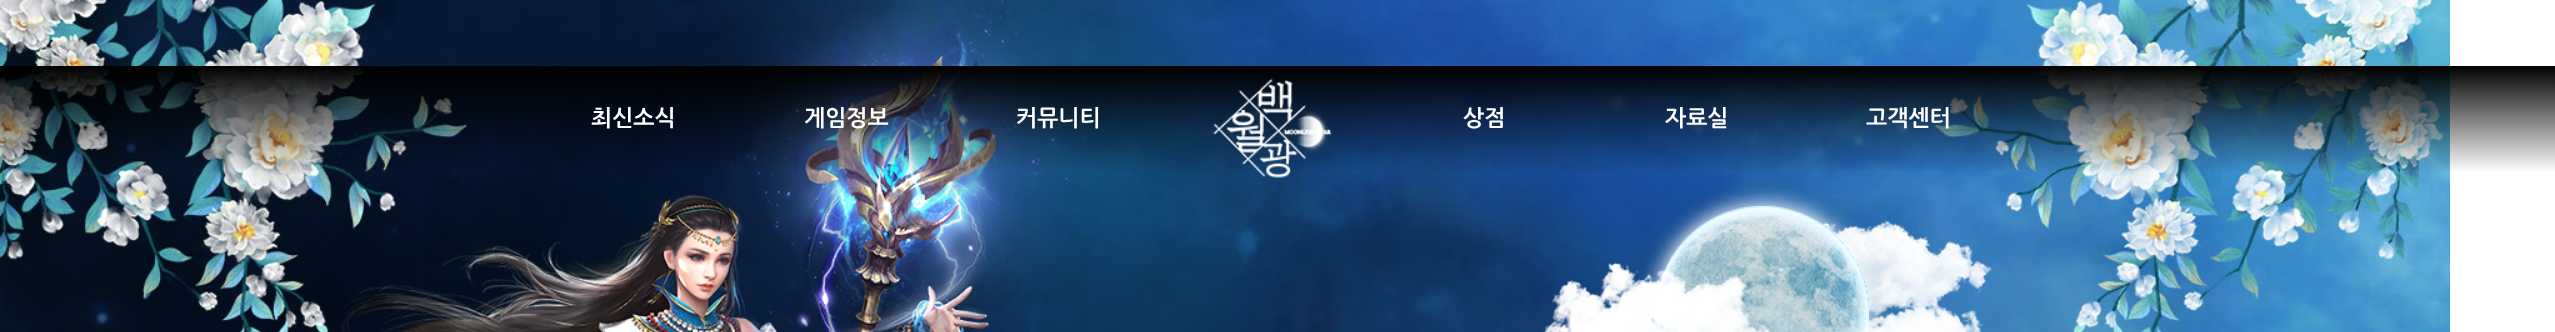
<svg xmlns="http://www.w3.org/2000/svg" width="2555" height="332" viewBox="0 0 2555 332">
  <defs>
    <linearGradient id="g1" gradientUnits="userSpaceOnUse" x1="1278" y1="66" x2="1278" y2="173"><stop offset="0" stop-color="#000"/><stop offset="1" stop-color="#000" stop-opacity="0"/></linearGradient>
  </defs>
  <rect width="100%" height="100%" fill="#fff"/>
  <image x="0" y="0" width="2450" height="332" href="img/1.png"/>
  <image x="340" y="0" width="748" height="332" href="img/2.png"/>
  <image x="1822" y="220" width="171" height="98" href="img/5.png"/>
  <image x="1638" y="186" width="251" height="146" href="img/3.png"/>
  <image x="1656" y="206" width="213" height="126" href="img/4.png"/>
  <image x="1543" y="262" width="228" height="70" href="img/6.png"/>
  <image x="1819" y="297" width="164" height="35" href="img/7.png"/>
  <path d="M0 66h2555v105H0z" fill="url(#g1)"/>
  <image x="1213" y="78" width="119" height="115" href="img/8.png"/>
  <g font-family="NanumGothic" font-size="22.5" font-weight="bold" fill="#fff">
    <text x="591" y="126">최신소식</text>
    <text x="804" y="126">게임정보</text>
    <text x="1016" y="126">커뮤니티</text>
    <text x="1463" y="126">상점</text>
    <text x="1665" y="126">자료실</text>
    <text x="1866" y="126">고객센터</text>
  </g>
</svg>
